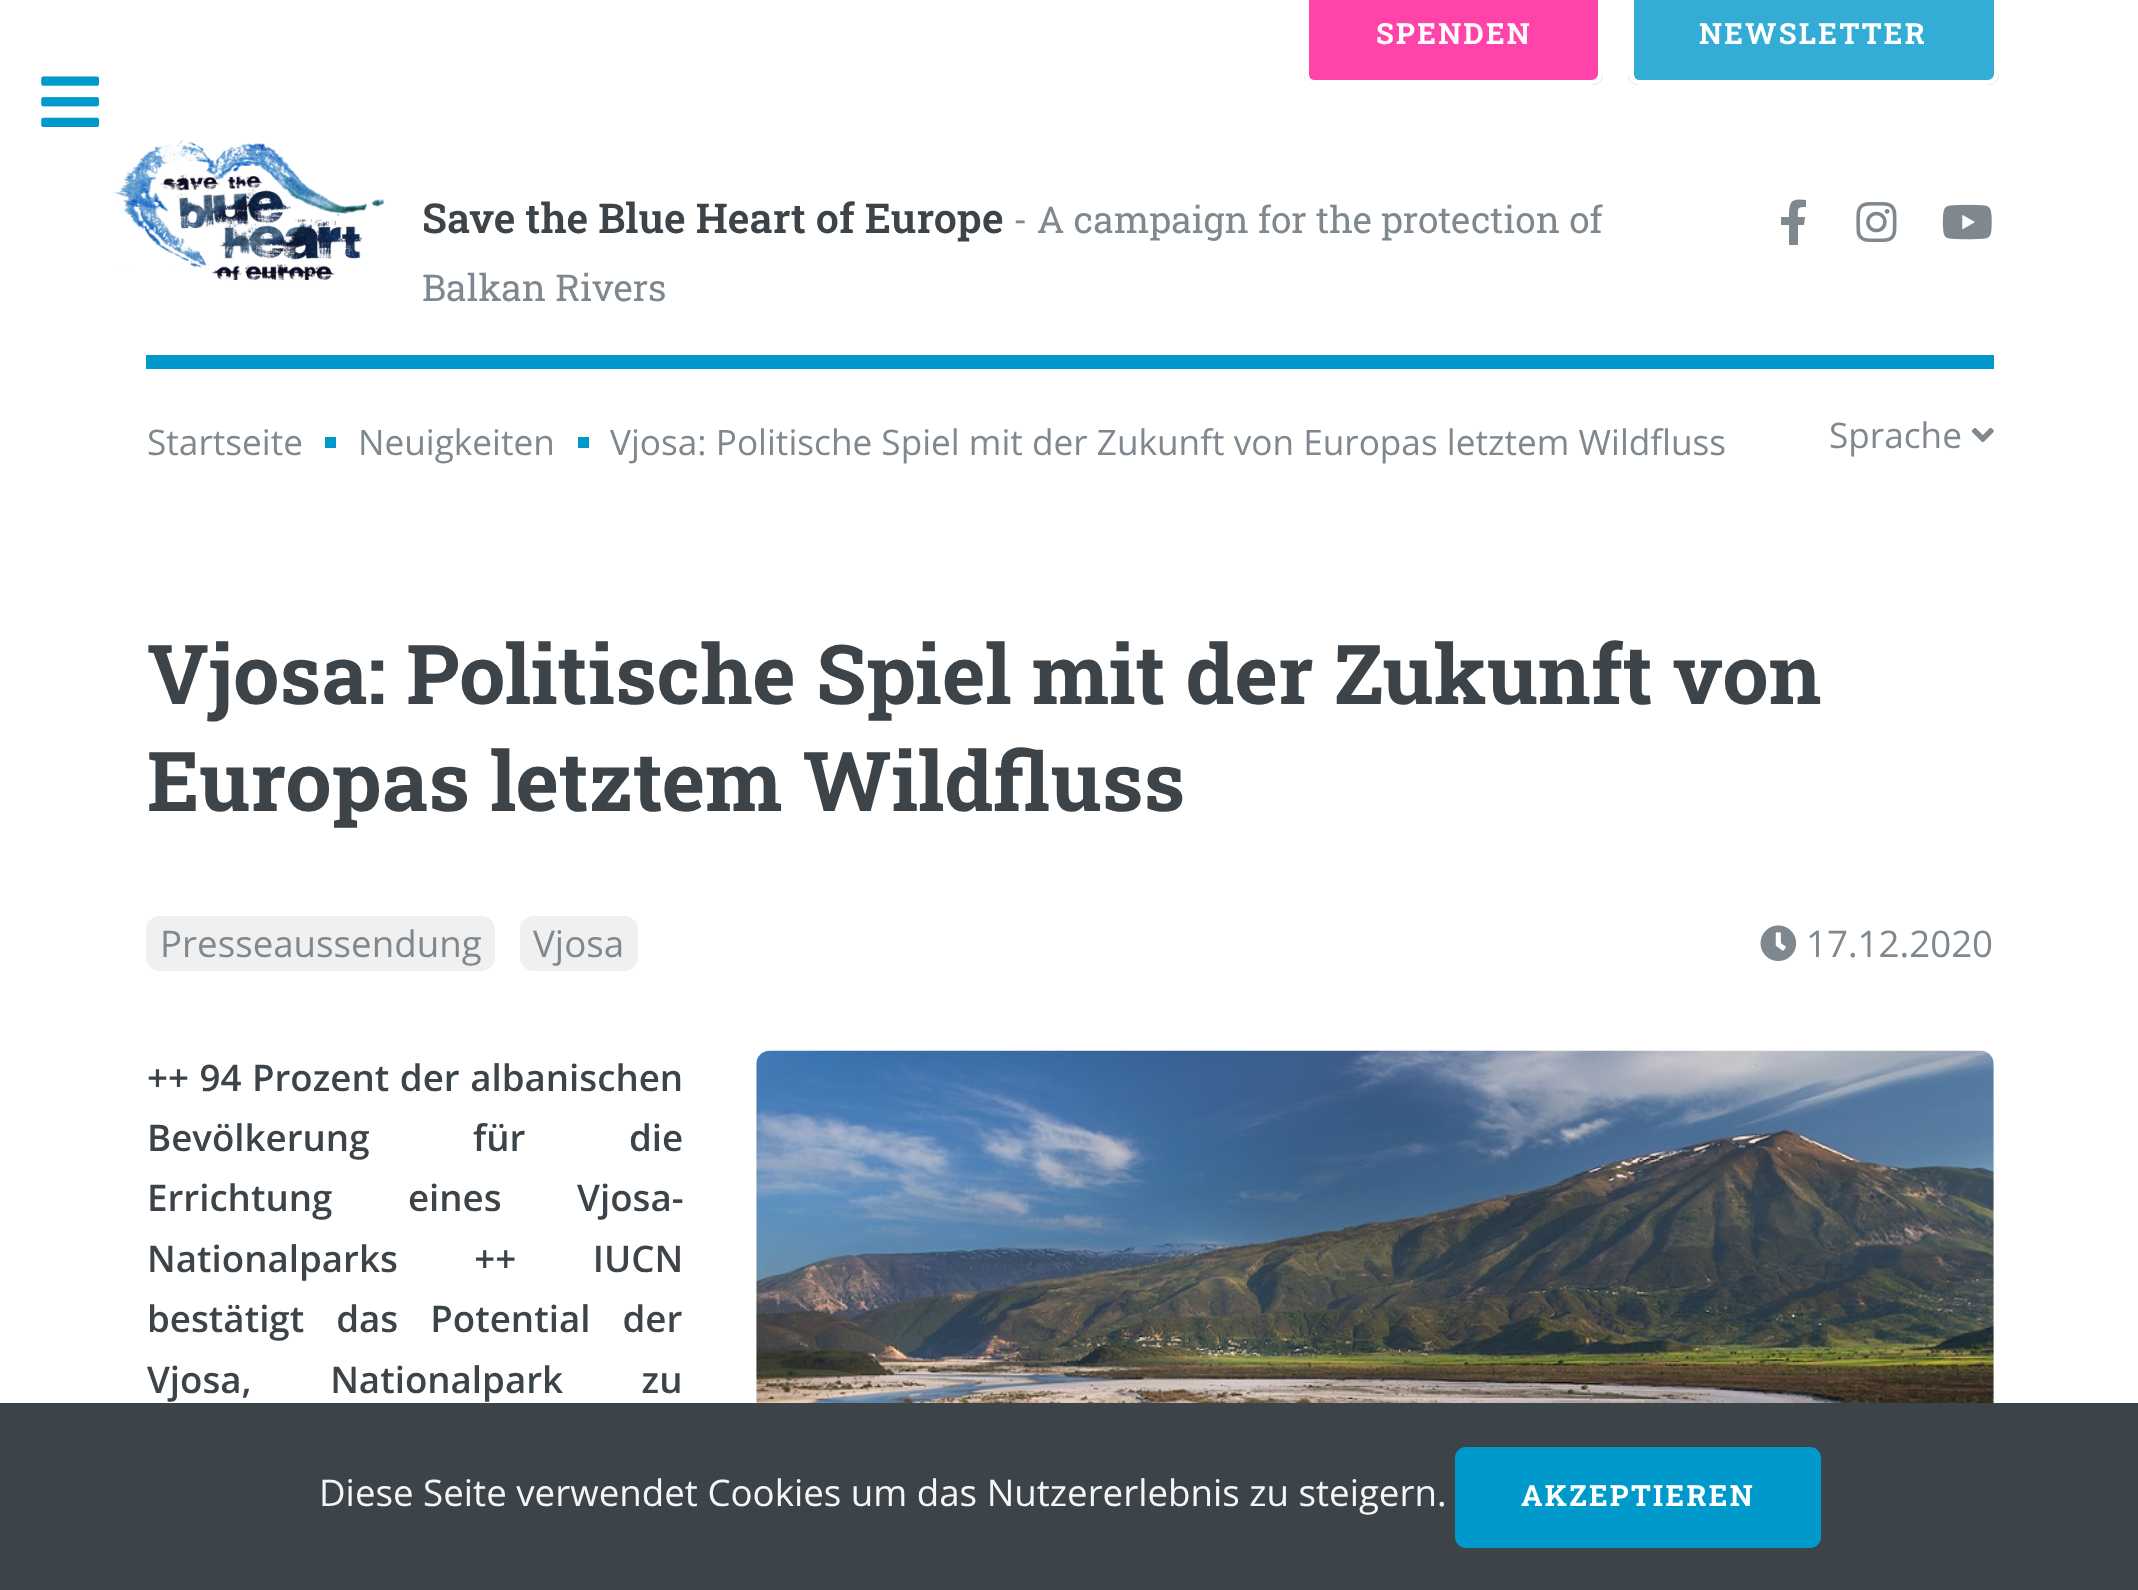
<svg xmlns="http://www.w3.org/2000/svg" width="2138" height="1590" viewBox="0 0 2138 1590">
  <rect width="100%" height="100%" fill="#fff"/>
  <path d="M1304-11H1603V74C1603 80 1598 85 1592 85H1315C1309 85 1304 80 1304 74Z" fill="#ff43a9"/>
  <path d="M1304-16H1603V74C1603 80 1598 85 1592 85H1314C1308 85 1304 80 1304 74ZM1309-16H1598V74C1598 77 1595 80 1592 80H1314C1311 80 1309 77 1309 74Z" fill="#fff" fill-rule="evenodd"/>
  <path d="M1628-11H1999V74C1999 80 1994 85 1988 85H1639C1633 85 1628 80 1628 74Z" fill="#33add6"/>
  <path d="M1628-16H1999V74C1999 80 1994 85 1988 85H1639C1633 85 1628 80 1628 74ZM1634-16H1994V74C1994 77 1991 80 1988 80H1639C1636 80 1634 77 1634 74Z" fill="#fff" fill-rule="evenodd"/>
  <image x="41" y="76" width="58" height="51" href="img/1.png"/>
  <path d="M146 355h1848v14H146z" fill="#09c"/>
  <image x="114" y="140" width="271" height="141" href="img/2.png"/>
  <path d="M1804 225H1798V245H1789V225H1781V217H1789C1789 201 1791 198 1806 200V207C1797 207 1798 208 1798 217H1805Z" fill="#7f888f"/>
  <image x="1856" y="202" width="41" height="41" href="img/3.png"/>
  <image x="1942" y="204" width="50" height="36" href="img/4.png"/>
  <path d="M325 437h11v11H325z" fill="#09c"/>
  <path d="M578 437h11v11H578z" fill="#09c"/>
  <image x="1971" y="428" width="23" height="15" href="img/5.png"/>
  <rect x="146" y="916" width="349" height="55" rx="14" fill="#f0f0f0"/>
  <rect x="520" y="916" width="118" height="55" rx="14" fill="#f0f0f0"/>
  <image x="1760" y="925" width="37" height="36" href="img/6.png"/>
  <image x="756" y="1050" width="1238" height="353" href="img/7.png"/>
  <path d="M0 1403h2138v187H0z" fill="#3d4449"/>
  <rect x="1455" y="1447" width="366" height="101" rx="11" fill="#09c"/>
  <g font-family="Roboto Slab" font-size="29.25" font-weight="bold" letter-spacing="2.25" fill="#fff">
    <text x="1376" y="44">SPENDEN</text>
    <text x="1699" y="44">NEWSLETTER</text>
  </g>
  <text x="422" y="233" font-family="Roboto Slab" font-size="41.25" font-weight="600" fill="#3d4449">Save the Blue Heart of Europe</text>
  <g font-family="Roboto Slab" font-size="37.1" fill="#7f888f">
    <text x="1013" y="233">- A campaign for the protection of</text>
    <text x="422" y="301">Balkan Rivers</text>
  </g>
  <g font-family="Open Sans" font-size="35.2" fill="#7f888f">
    <text x="147" y="455">Startseite</text>
    <text x="358" y="455">Neuigkeiten</text>
    <text x="610" y="455">Vjosa: Politische Spiel mit der Zukunft von Europas letztem Wildfluss</text>
    <text x="1829" y="448">Sprache</text>
  </g>
  <g font-family="Roboto Slab" font-size="82.5" font-weight="bold" fill="#3d4449">
    <text x="147" y="704">Vjosa: Politische Spiel mit der Zukunft von</text>
    <text x="147" y="811">Europas letztem Wildfluss</text>
  </g>
  <g font-family="Open Sans" font-size="36.7" fill="#7f888f">
    <text x="160" y="957">Presseaussendung</text>
    <text x="533" y="957">Vjosa</text>
    <text x="1806" y="957">17.12.2020</text>
  </g>
  <g font-family="Open Sans" font-size="36.7" font-weight="600" fill="#3d4449">
    <text x="147" y="1091" word-spacing="1">++ 94 Prozent der albanischen</text>
    <text x="147" y="1151" word-spacing="94">Bevölkerung für die</text>
    <text x="147" y="1211" word-spacing="66">Errichtung eines Vjosa-</text>
    <text x="147" y="1272" word-spacing="67">Nationalparks ++ IUCN</text>
    <text x="147" y="1332" word-spacing="22.5">bestätigt das Potential der</text>
    <text x="147" y="1393" word-spacing="69">Vjosa, Nationalpark zu</text>
  </g>
  <text x="319" y="1506" font-family="Open Sans" font-size="36.7" fill="#f5f6f7">Diese Seite verwendet Cookies um das Nutzererlebnis zu steigern.</text>
  <text x="1521" y="1506" font-family="Roboto Slab" font-size="29.25" font-weight="bold" letter-spacing="2.25" fill="#fff">AKZEPTIEREN</text>
</svg>
